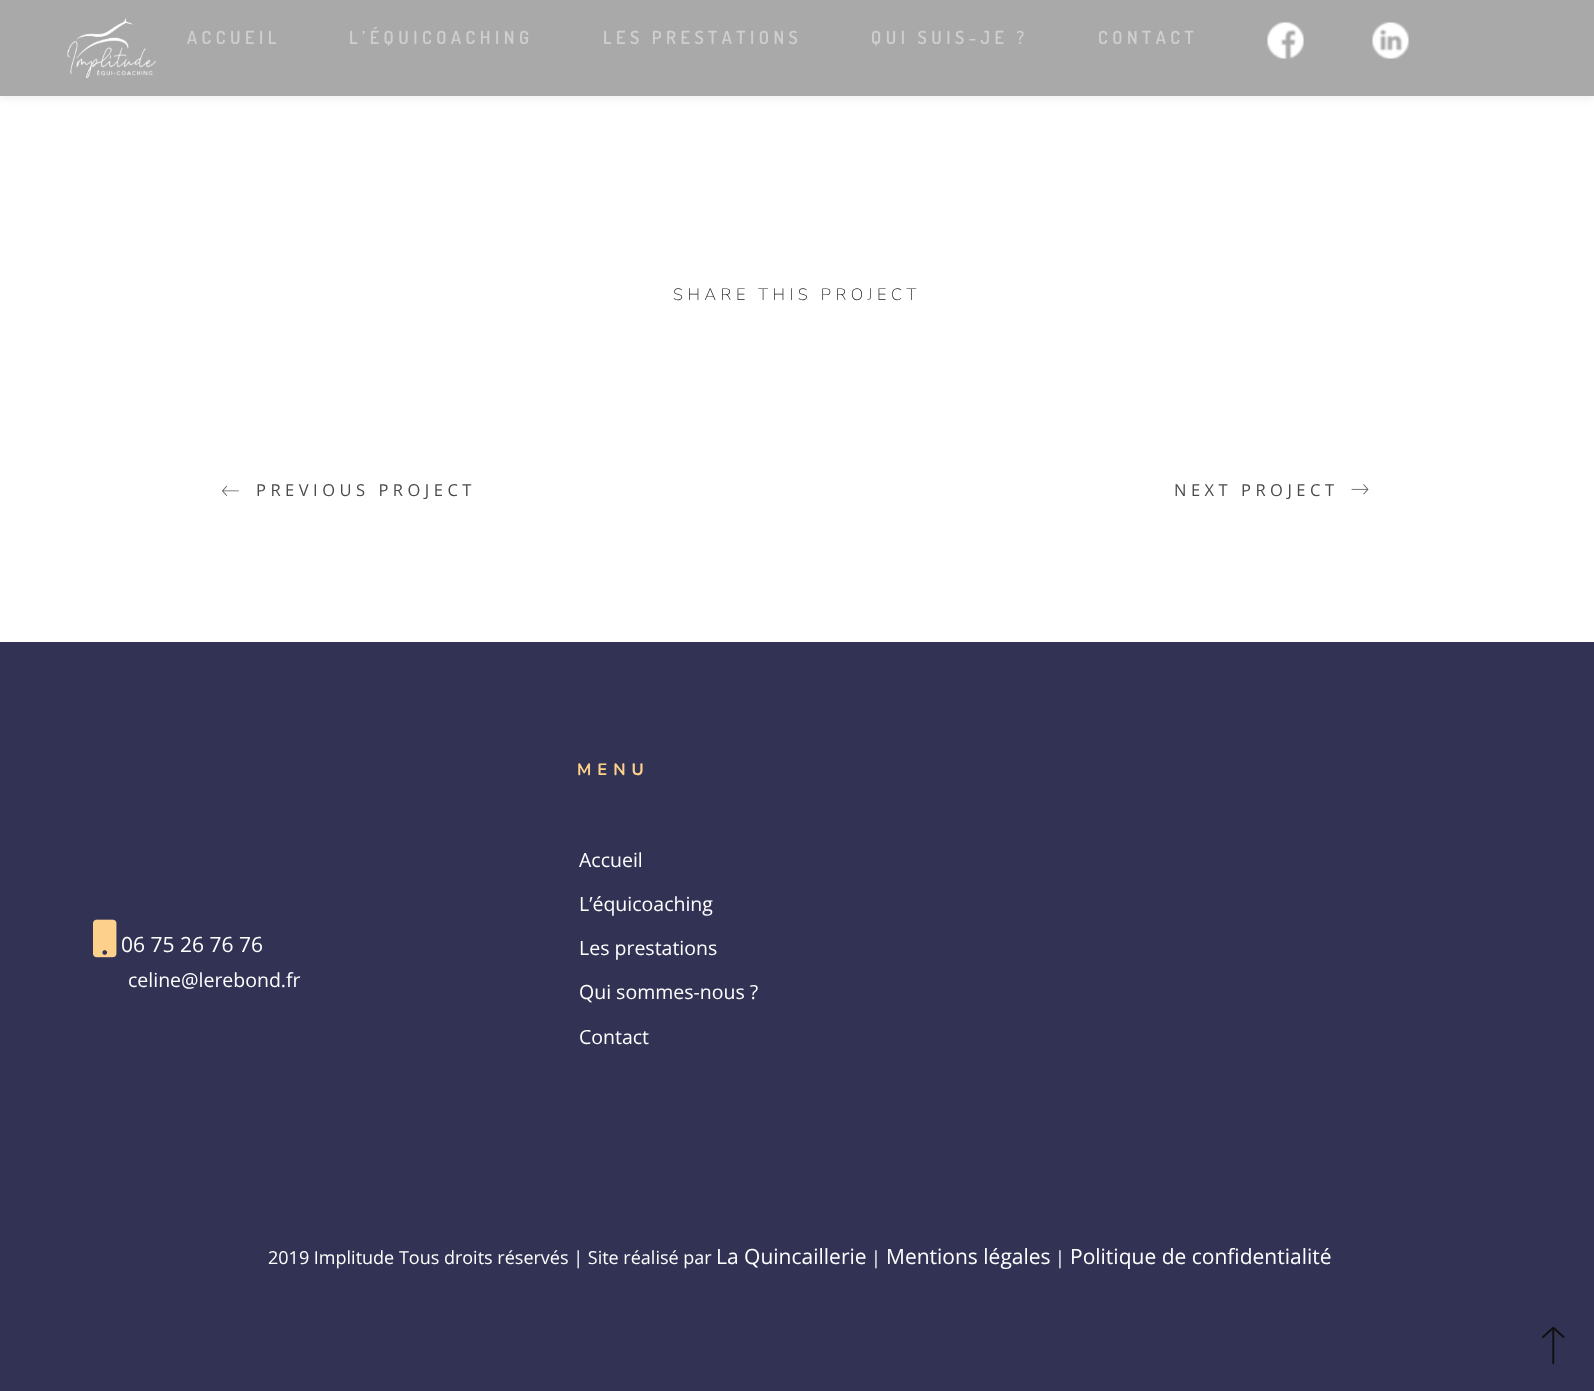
<svg xmlns="http://www.w3.org/2000/svg" width="1594" height="1391" viewBox="0 0 1594 1391">
  <style>*{font-kerning:none!important;font-variant-ligatures:none!important}</style>
  <rect width="100%" height="100%" fill="#fff"/>
  <path d="M0 2h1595v96H0z" fill="#4444441a" filter="blur(4.5px)"/>
  <path d="M0 0h1594v96H0z" fill="#a9a9a9"/>
  <image x="67" y="18" width="89" height="60" href="img/1.png"/>
  <image x="1267" y="22" width="37" height="37" href="img/2.png"/>
  <image x="1372" y="22" width="37" height="37" href="img/3.png"/>
  <image x="222" y="485" width="17" height="11" href="img/4.png"/>
  <image x="1351" y="484" width="18" height="11" href="img/5.png"/>
  <path d="M0 642h1594v749H0z" fill="#313254"/>
  <image x="93" y="919" width="24" height="39" href="img/6.png"/>
  <image x="1542" y="1326" width="23" height="39" href="img/7.png"/>
  <g font-family="Dosis" font-size="18" font-weight="600" letter-spacing="4.5" fill="#cfcfcf">
    <text x="187" y="44">ACCUEIL</text>
    <text x="349" y="44">L’ÉQUICOACHING</text>
    <text x="603" y="44">LES PRESTATIONS</text>
    <text x="871" y="44">QUI SUIS-JE ?</text>
    <text x="1098" y="44">CONTACT</text>
  </g>
  <text x="673" y="300" font-family="Nunito" font-size="16.5" font-weight="200" letter-spacing="4.5" fill="#212121">SHARE THIS PROJECT</text>
  <g font-family="Open Sans" font-size="16.5" letter-spacing="4.5" fill="#4a4a4a">
    <text x="256" y="496">PREVIOUS PROJECT</text>
    <text x="1174" y="496">NEXT PROJECT</text>
  </g>
  <text x="121" y="952" font-family="Open Sans" font-size="21" fill="#fff">06 75 26 76 76</text>
  <text x="128" y="987" font-family="Open Sans" font-size="19.5" fill="#fff">celine@lerebond.fr</text>
  <text x="577" y="775" font-family="Nunito" font-size="16.5" font-weight="bold" letter-spacing="6" fill="#fdd08b">MENU</text>
  <g font-family="Open Sans" font-size="19.5" fill="#fff">
    <text x="579" y="867">Accueil</text>
    <text x="579" y="911">L’équicoaching</text>
    <text x="579" y="955">Les prestations</text>
    <text x="579" y="999">Qui sommes-nous ?</text>
    <text x="579" y="1044">Contact</text>
  </g>
  <text x="268" y="1264" font-family="Open Sans" font-size="18" fill="#fff">2019 Implitude Tous droits réservés | Site réalisé par</text>
  <text x="716" y="1264" font-family="Open Sans" font-size="21" fill="#fff">La Quincaillerie</text>
  <text x="871" y="1264" font-family="Open Sans" font-size="18" fill="#fff">|</text>
  <text x="886" y="1264" font-family="Open Sans" font-size="21" fill="#fff">Mentions légales</text>
  <text x="1055" y="1264" font-family="Open Sans" font-size="18" fill="#fff">|</text>
  <text x="1070" y="1264" font-family="Open Sans" font-size="21" fill="#fff">Politique de confidentialité</text>
</svg>
